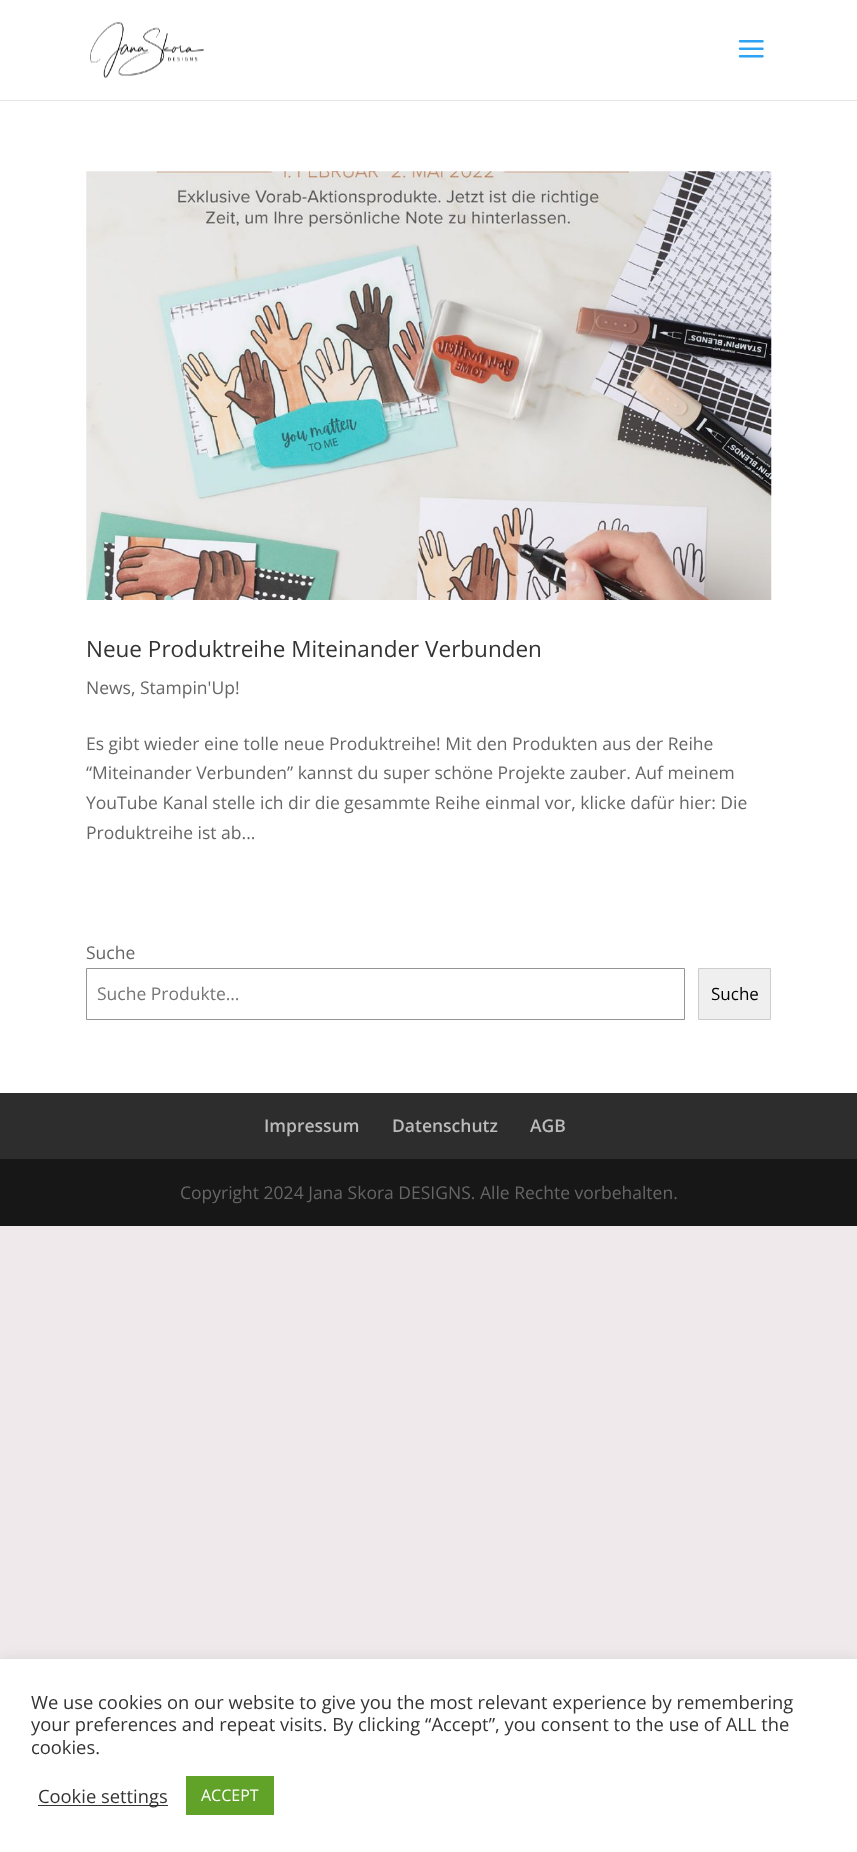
<svg xmlns="http://www.w3.org/2000/svg" width="857" height="1852" viewBox="0 0 857 1852">
  <rect width="100%" height="100%" fill="#efe9eb"/>
  <path d="M0 100V101H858V1V100Z" fill="#e6e6e6"/>
  <path d="M0 0h857v100H0z" fill="#fff"/>
  <image x="90" y="22" width="114" height="56" href="img/1.png"/>
  <image x="738" y="40" width="26" height="18" href="img/2.png"/>
  <path d="M0 101h857v992H0z" fill="#fff"/>
  <image x="86" y="171" width="686" height="429" href="img/3.png"/>
  <path d="M86.5 968.5h598v51H86.5z" fill="none" stroke="#949494"/>
  <path d="M698.5 968.5h72v51H698.5z" fill="#efefef" stroke="#ccc"/>
  <path d="M0 1093h857v66H0z" fill="#2d2d2d"/>
  <path d="M0 1159h857v67H0z" fill="#171717"/>
  <path d="M0 1658h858v193H0z" fill="#acabab4d" filter="blur(6px)"/>
  <path d="M0 1659h857v193H0z" fill="#fff"/>
  <path d="M38 1805h130v1H38z" fill="#333"/>
  <path d="M186 1776h88v39H186z" fill="#61a229"/>
  <text x="86" y="657" font-family="Open Sans" font-size="22.5" fill="#333">Neue Produktreihe Miteinander Verbunden</text>
  <g font-family="Open Sans" font-size="17.5" fill="#666">
    <text x="86" y="694">News, Stampin'Up!</text>
    <text x="86" y="750">Es gibt wieder eine tolle neue Produktreihe! Mit den Produkten aus der Reihe</text>
    <text x="86" y="779">“Miteinander Verbunden” kannst du super schöne Projekte zauber. Auf meinem</text>
    <text x="86" y="809">YouTube Kanal stelle ich dir die gesammte Reihe einmal vor, klicke dafür hier: Die</text>
    <text x="86" y="839">Produktreihe ist ab...</text>
    <text x="86" y="959">Suche</text>
  </g>
  <text x="97" y="1000" font-family="Open Sans" font-size="17.5" fill="#757575">Suche Produkte…</text>
  <text x="711" y="1000" font-family="Open Sans" font-size="17" fill="#000">Suche</text>
  <g font-family="Open Sans" font-size="17.5" font-weight="600" fill="#bbb">
    <text x="264" y="1132">Impressum</text>
    <text x="392" y="1132">Datenschutz</text>
    <text x="530" y="1132">AGB</text>
  </g>
  <text x="180" y="1199" font-family="Open Sans" font-size="17.5" fill="#666">Copyright 2024 Jana Skora DESIGNS. Alle Rechte vorbehalten.</text>
  <g font-family="Open Sans" font-size="18.35" fill="#333">
    <text x="31" y="1709">We use cookies on our website to give you the most relevant experience by remembering</text>
    <text x="31" y="1731">your preferences and repeat visits. By clicking “Accept”, you consent to the use of ALL the</text>
    <text x="31" y="1754">cookies.</text>
    <text x="38" y="1803">Cookie settings</text>
  </g>
  <text x="201" y="1801" font-family="Open Sans" font-size="16" fill="#fff">ACCEPT</text>
</svg>
